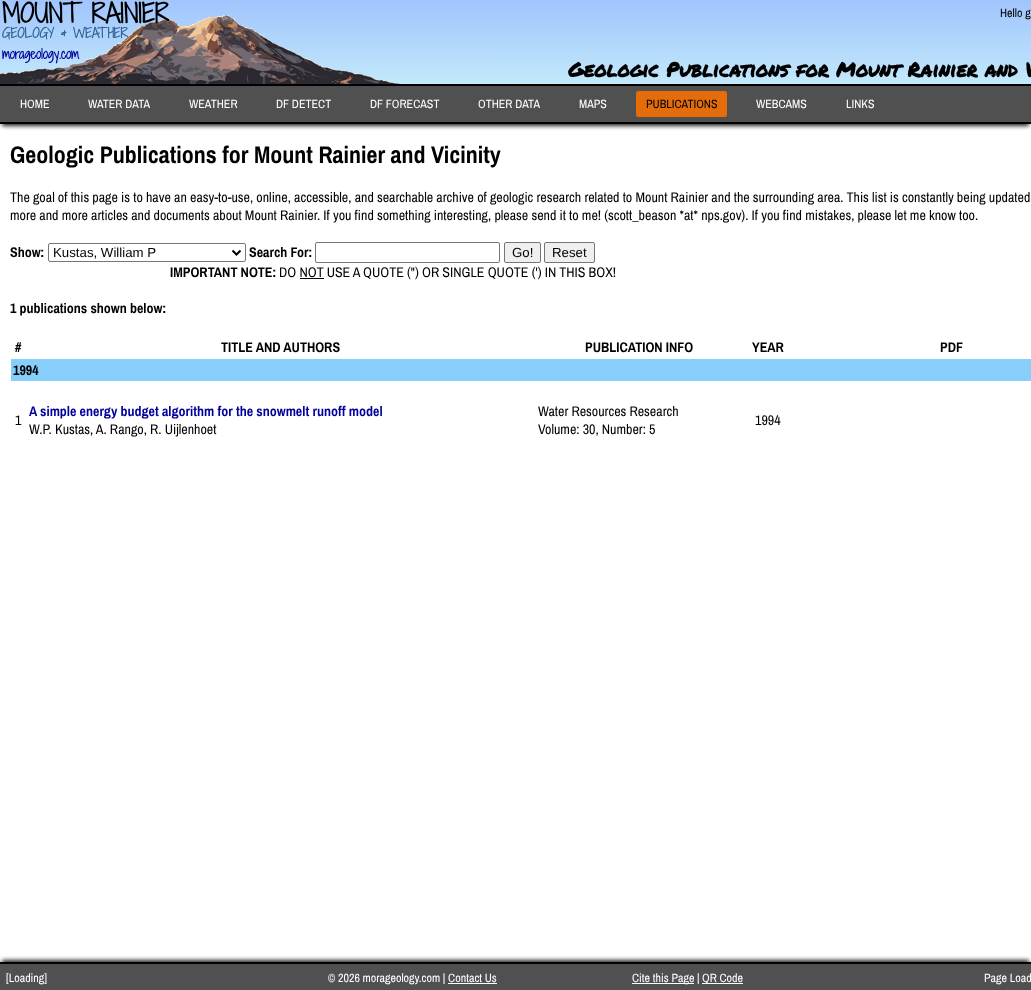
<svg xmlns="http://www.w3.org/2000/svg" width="1031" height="990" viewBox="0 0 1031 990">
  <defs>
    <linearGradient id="g1" gradientUnits="userSpaceOnUse" x1="516" y1="0" x2="516" y2="84"><stop offset="0" stop-color="#a1c4fd"/><stop offset="1" stop-color="#c2e9fb"/></linearGradient>
  </defs>
  <rect width="100%" height="100%" fill="#fff"/>
  <path d="M0 0h1031v84H0z" fill="url(#g1)"/>
  <image x="0" y="15" width="400" height="69" href="img/1.png"/>
  <path d="M2 90h1027v36H2z" fill="#232323" filter="blur(2px)"/>
  <path d="M0 86h1031v36H0z" fill="#505050"/>
  <path d="M0 84h1031v2H0z" fill="#000"/>
  <path d="M0 122h1031v2H0z" fill="#000"/>
  <rect x="636" y="91" width="91" height="26" rx="2.5" fill="#e46c0a"/>
  <rect x="48.5" y="243.5" width="197" height="18" rx="1.5" fill="none" stroke="#767676"/>
  <path d="M232.5 250.5L236.5 254.5L240.5 250.5" fill="none" stroke="#000" stroke-width="2"/>
  <rect x="315.5" y="242.5" width="184" height="20" rx="1.5" fill="none" stroke="#767676"/>
  <rect x="504.5" y="242.5" width="36" height="20" rx="1.5" fill="#efefef" stroke="#767676"/>
  <rect x="544.5" y="242.5" width="50" height="20" rx="1.5" fill="#efefef" stroke="#767676"/>
  <path d="M300 278h24v1H300z" fill="#000"/>
  <path d="M11 359h1020v22H11z" fill="#87cefa"/>
  <path d="M2 960h1027v24H2z" fill="#232323" filter="blur(2px)"/>
  <path d="M0 964h1031v26H0z" fill="#505050"/>
  <path d="M0 962h1031v2H0z" fill="#000"/>
  <path d="M448 983h49v1H448z" fill="#fff"/>
  <path d="M632 983h62v1H632z" fill="#fff"/>
  <path d="M702 983h41v1H702z" fill="#fff"/>
  <text x="2" y="23" font-family="Shadows Into Light Two" font-size="25" font-weight="bold" fill="#000">MOUNT RAINIER</text>
  <text x="2" y="38" font-family="Shadows Into Light Two" font-size="13" font-weight="bold" fill="#326295">GEOLOGY &amp; WEATHER</text>
  <text x="2" y="59" font-family="Shadows Into Light Two" font-size="13" font-weight="bold" fill="#00009c">morageology.com</text>
  <text x="1000" y="17" font-family="Archivo Narrow" font-size="12" fill="#000">Hello g</text>
  <text x="568" y="77" font-family="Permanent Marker" font-size="20" font-weight="bold" fill="#000">Geologic Publications for Mount Rainier and V</text>
  <g font-family="Archivo Narrow" font-size="12" fill="#fff">
    <text x="20" y="108">HOME</text>
    <text x="88" y="108">WATER DATA</text>
    <text x="189" y="108">WEATHER</text>
    <text x="276" y="108">DF DETECT</text>
    <text x="370" y="108">DF FORECAST</text>
    <text x="478" y="108">OTHER DATA</text>
    <text x="579" y="108">MAPS</text>
  </g>
  <text x="646" y="108" font-family="Archivo Narrow" font-size="12" fill="#000">PUBLICATIONS</text>
  <g font-family="Archivo Narrow" font-size="12" fill="#fff">
    <text x="756" y="108">WEBCAMS</text>
    <text x="846" y="108">LINKS</text>
  </g>
  <text x="10" y="163" font-family="Archivo Narrow" font-size="24" font-weight="bold" fill="#000">Geologic Publications for Mount Rainier and Vicinity</text>
  <g font-family="Archivo Narrow" font-size="14" fill="#000">
    <text x="10" y="202">The goal of this page is to have an easy-to-use, online, accessible, and searchable archive of geologic research related to Mount Rainier and the surrounding area. This list is constantly being updated</text>
    <text x="10" y="220">more and more articles and documents about Mount Rainier. If you find something interesting, please send it to me! (scott_beason *at* nps.gov). If you find mistakes, please let me know too.</text>
  </g>
  <text x="10" y="257" font-family="Archivo Narrow" font-size="14" font-weight="bold" fill="#000">Show:</text>
  <text x="53" y="257" font-family="Liberation Sans" font-size="13.25" fill="#000">Kustas, William P</text>
  <text x="249" y="257" font-family="Archivo Narrow" font-size="14" font-weight="bold" fill="#000">Search For:</text>
  <g font-family="Liberation Sans" font-size="13.25" fill="#000">
    <text x="512" y="257">Go!</text>
    <text x="552" y="257">Reset</text>
  </g>
  <text x="170" y="277" font-family="Archivo Narrow" font-size="14" font-weight="bold" fill="#000">IMPORTANT NOTE:</text>
  <text x="279" y="277" font-family="Archivo Narrow" font-size="14" fill="#000">DO NOT USE A QUOTE (") OR SINGLE QUOTE (') IN THIS BOX!</text>
  <g font-family="Archivo Narrow" font-size="14" font-weight="bold" fill="#000">
    <text x="10" y="313">1 publications shown below:</text>
    <text x="15" y="352">#</text>
    <text x="221" y="352">TITLE AND AUTHORS</text>
    <text x="585" y="352">PUBLICATION INFO</text>
    <text x="752" y="352">YEAR</text>
    <text x="940" y="352">PDF</text>
    <text x="13" y="375">1994</text>
  </g>
  <text x="15" y="425" font-family="Archivo Narrow" font-size="14" fill="#000">1</text>
  <text x="29" y="416" font-family="Archivo Narrow" font-size="14" font-weight="bold" fill="#00009c">A simple energy budget algorithm for the snowmelt runoff model</text>
  <g font-family="Archivo Narrow" font-size="14" fill="#000">
    <text x="29" y="434">W.P. Kustas, A. Rango, R. Uijlenhoet</text>
    <text x="538" y="416">Water Resources Research</text>
    <text x="538" y="434">Volume: 30, Number: 5</text>
    <text x="755" y="425">1994</text>
  </g>
  <g font-family="Archivo Narrow" font-size="12" fill="#fff">
    <text x="6" y="982">[Loading]</text>
    <text x="328" y="982">© 2026 morageology.com | Contact Us</text>
    <text x="632" y="982">Cite this Page |</text>
    <text x="702" y="982">QR Code</text>
    <text x="984" y="982">Page Load</text>
  </g>
</svg>
